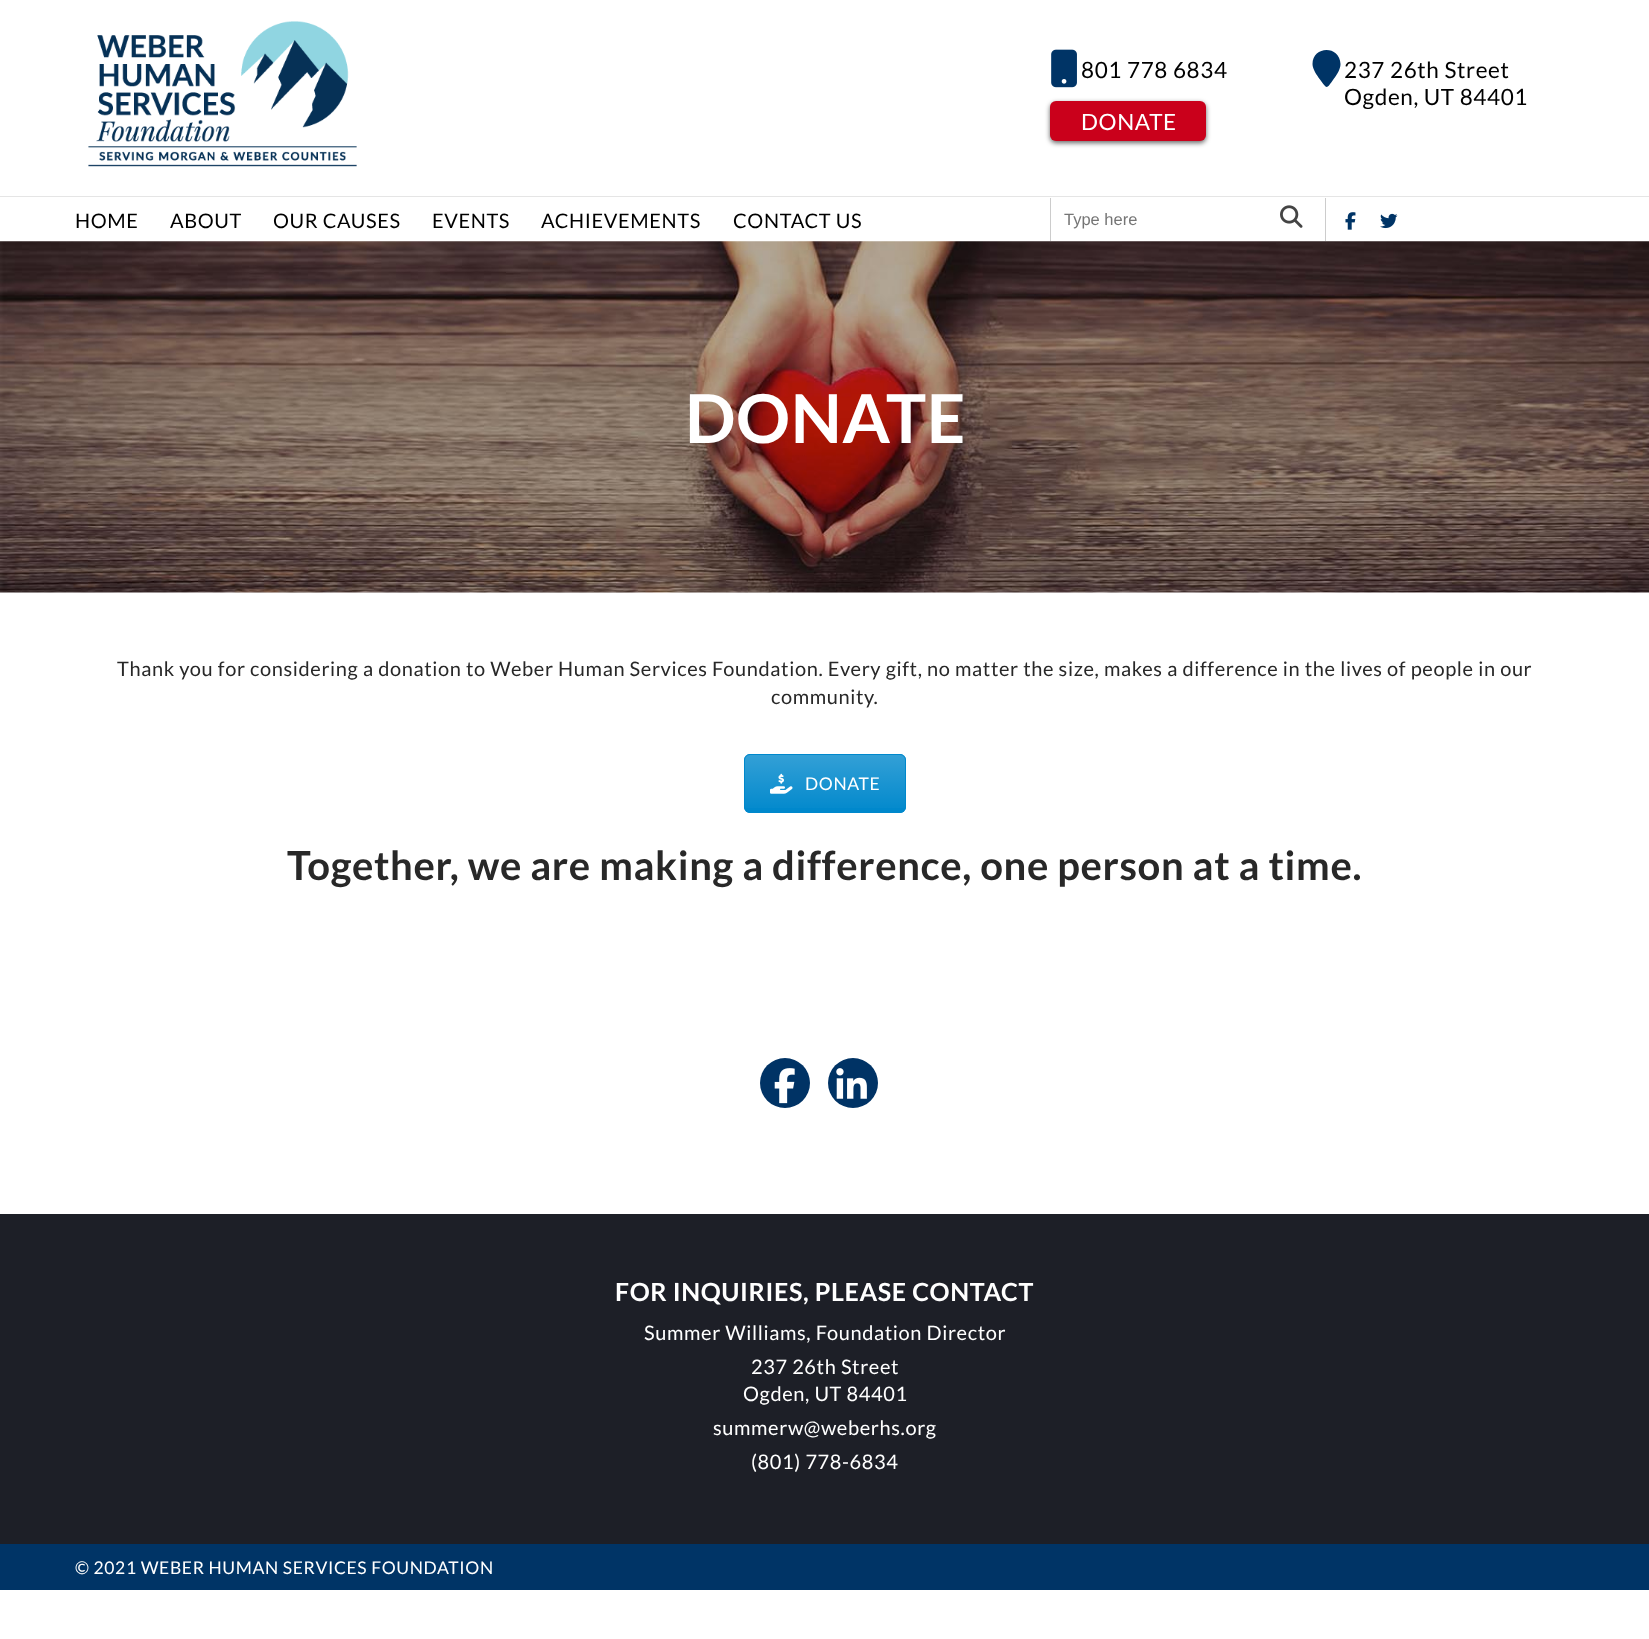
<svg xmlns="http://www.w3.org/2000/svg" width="1649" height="1639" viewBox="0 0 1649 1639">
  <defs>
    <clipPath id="clip1"><rect x="744" y="754" width="162" height="59" rx="6"/></clipPath>
    <linearGradient id="g1" gradientUnits="userSpaceOnUse" x1="825" y1="755" x2="825" y2="811"><stop offset="0" stop-color="#fff" stop-opacity="0.2"/><stop offset="1" stop-color="#fff" stop-opacity="0.01"/></linearGradient>
  </defs>
  <rect width="100%" height="100%" fill="#fff"/>
  <image x="88" y="21" width="269" height="146" href="img/1.png"/>
  <image x="1051" y="49" width="26" height="39" href="img/2.png"/>
  <rect x="1050" y="103" width="156" height="40" rx="6" fill="#00000099" filter="blur(2.5px)"/>
  <rect x="1050" y="101" width="156" height="40" rx="6" fill="#ca001b"/>
  <path d="M1340.5 64C1340.5 69 1337 74.5 1334 78.5C1326.5 89 1327.5 90 1320 79.5C1317 75.5 1312.5 69 1312.5 64C1312.5 45.5 1340 45 1340.5 64Z" fill="#003466"/>
  <path d="M0 196h1649v1H0z" fill="#e5e5e5"/>
  <path d="M1325 198h1v43H1325z" fill="#ccc"/>
  <path d="M1050 198h1v43H1050z" fill="#ccc"/>
  <image x="1280" y="205" width="23" height="23" href="img/3.png"/>
  <image x="1345" y="212" width="11" height="18" href="img/4.png"/>
  <image x="1380" y="213" width="18" height="16" href="img/5.png"/>
  <image x="0" y="241" width="1649" height="352" href="img/6.png"/>
  <rect x="744" y="754" width="162" height="59" rx="6" fill="#08c"/>
  <g clip-path="url(#clip1)">
    <path d="M744 755h162v53H744z" fill="url(#g1)"/>
  </g>
  <rect x="744.5" y="754.5" width="161" height="58" rx="5.5" fill="none" stroke="#08c"/>
  <image x="770" y="773" width="23" height="21" href="img/7.png"/>
  <circle cx="785" cy="1083" r="25" fill="#003365"/>
  <image x="774" y="1068" width="21" height="36" href="img/8.png"/>
  <circle cx="853" cy="1083" r="25" fill="#003365"/>
  <image x="836" y="1068" width="31" height="31" href="img/9.png"/>
  <path d="M0 1214h1649v330H0z" fill="#1d1f27"/>
  <path d="M0 1544h1649v46H0z" fill="#003466"/>
  <text x="1081" y="78" font-family="Lato" font-size="22.5" letter-spacing="0.62" fill="#000">801 778 6834</text>
  <text x="1081" y="130" font-family="Lato" font-size="22.5" letter-spacing="0.62" fill="#fff">DONATE</text>
  <g font-family="Lato" font-size="22.5" letter-spacing="0.62" fill="#000">
    <text x="1344" y="78">237 26th Street</text>
    <text x="1344" y="105">Ogden, UT 84401</text>
  </g>
  <g font-family="Lato" font-size="20" letter-spacing="0.62" fill="#000">
    <text x="75" y="228">HOME</text>
    <text x="170" y="228">ABOUT</text>
    <text x="273" y="228">OUR CAUSES</text>
    <text x="432" y="228">EVENTS</text>
    <text x="541" y="228">ACHIEVEMENTS</text>
    <text x="733" y="228">CONTACT US</text>
  </g>
  <text x="1064" y="225" font-family="Liberation Sans" font-size="16.5" fill="#757575">Type here</text>
  <text x="685" y="443" font-family="Lato" font-size="67.5" font-weight="bold" letter-spacing="0.62" fill="#fff">DONATE</text>
  <g font-family="Lato" font-size="20" letter-spacing="0.62" fill="#282828">
    <text x="117" y="676">Thank you for considering a donation to Weber Human Services Foundation. Every gift, no matter the size, makes a difference in the lives of people in our</text>
    <text x="771" y="704">community.</text>
  </g>
  <text x="805" y="790" font-family="Lato" font-size="17.5" letter-spacing="0.62" fill="#fff">DONATE</text>
  <text x="287" y="880" font-family="Lato" font-size="40" font-weight="bold" letter-spacing="0.62" fill="#282828">Together, we are making a difference, one person at a time.</text>
  <text x="615" y="1301" font-family="Lato" font-size="25" font-weight="bold" letter-spacing="0.62" fill="#fff">FOR INQUIRIES, PLEASE CONTACT</text>
  <g font-family="Lato" font-size="20" letter-spacing="0.62" fill="#fff">
    <text x="644" y="1340">Summer Williams, Foundation Director</text>
    <text x="751" y="1374">237 26th Street</text>
    <text x="743" y="1401">Ogden, UT 84401</text>
    <text x="713" y="1435">summerw@weberhs.org</text>
    <text x="751" y="1469">(801) 778-6834</text>
  </g>
  <text x="75" y="1574" font-family="Lato" font-size="17.5" letter-spacing="0.62" fill="#fff">© 2021 WEBER HUMAN SERVICES FOUNDATION</text>
</svg>
